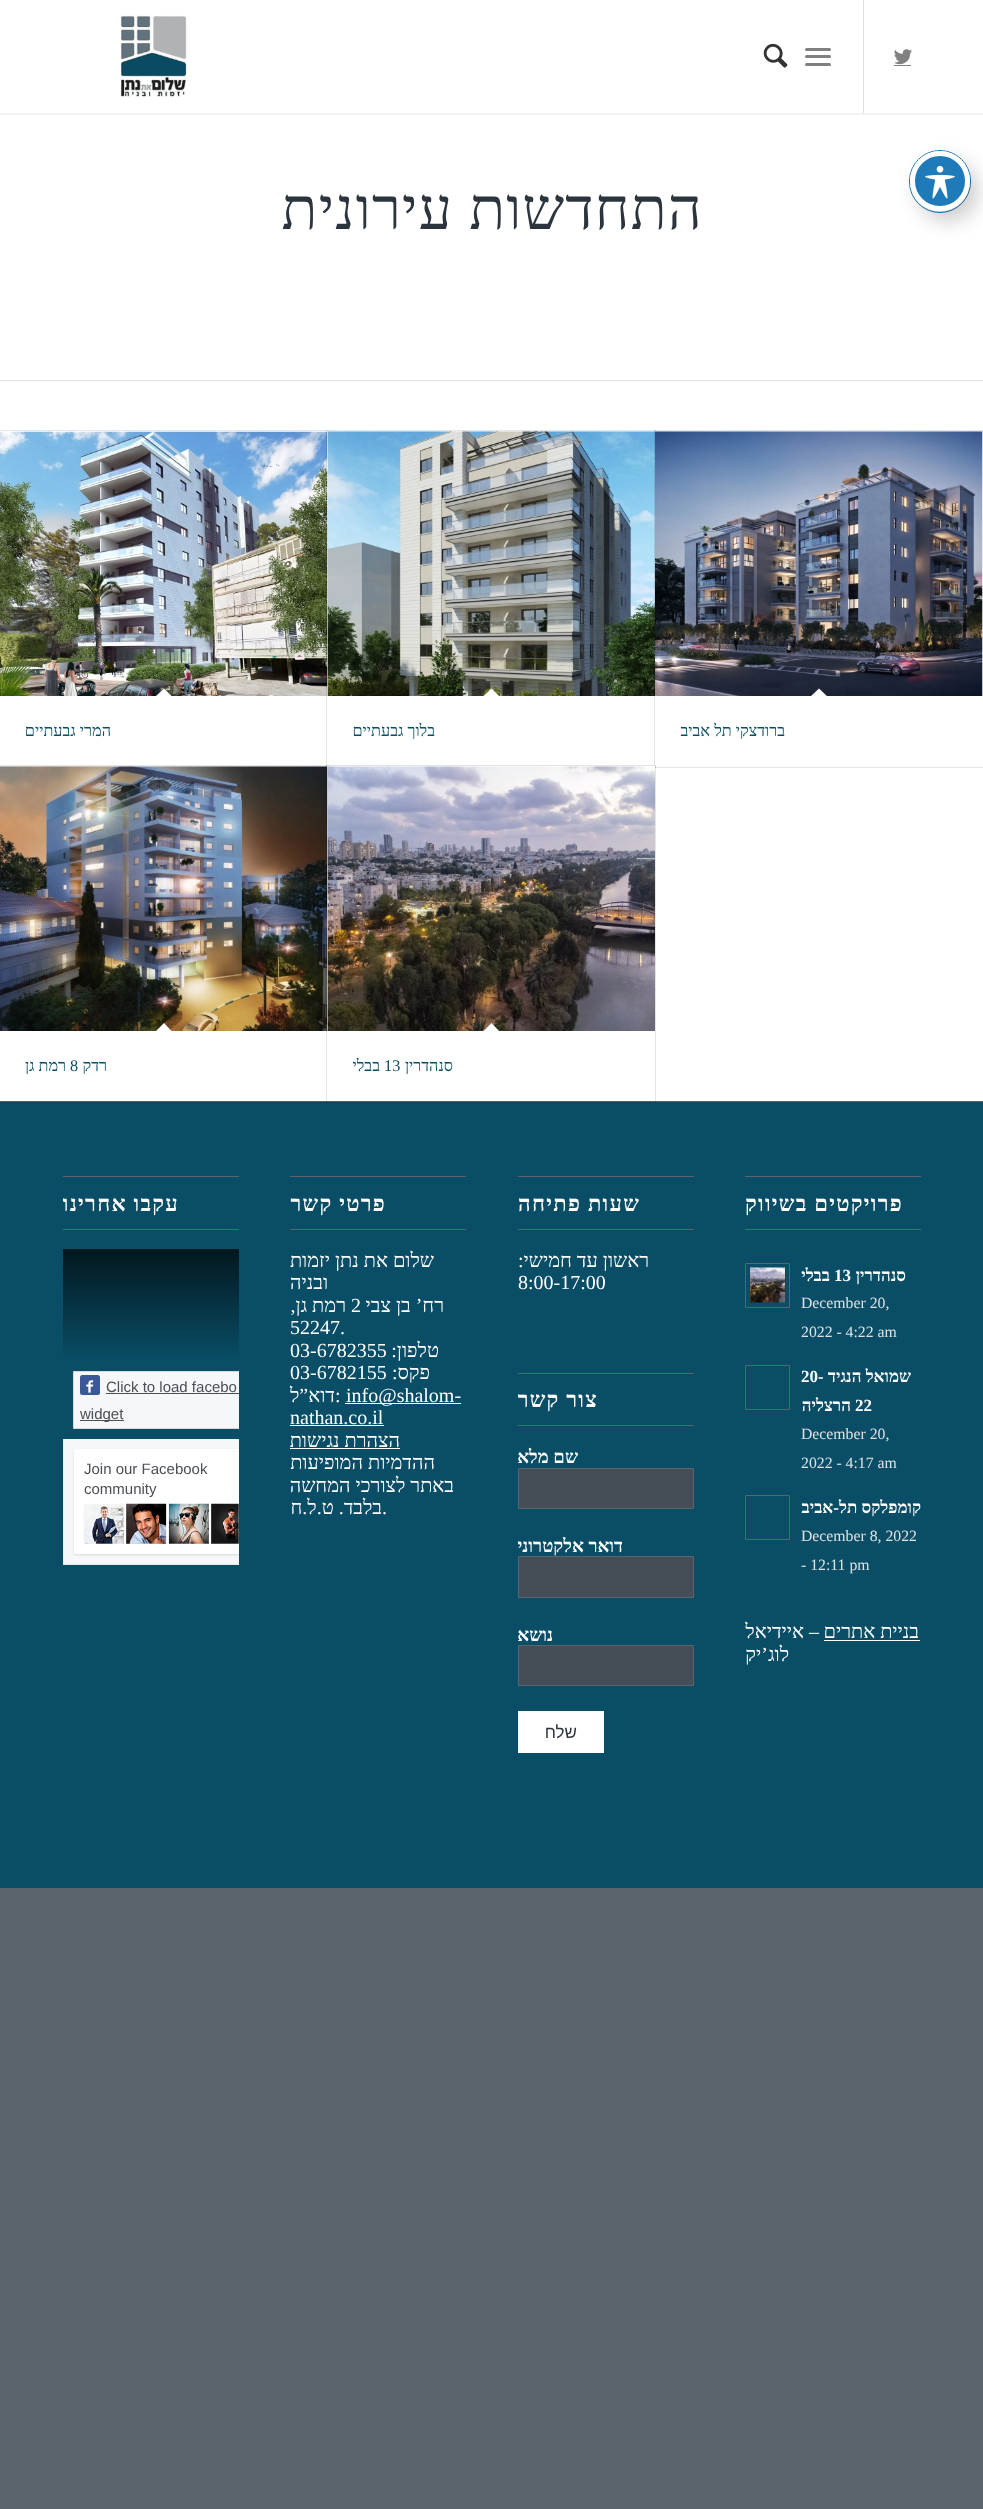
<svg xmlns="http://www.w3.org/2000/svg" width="983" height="2509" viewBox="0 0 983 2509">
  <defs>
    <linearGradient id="g1" gradientUnits="userSpaceOnUse" x1="175" y1="1249" x2="175" y2="1361"><stop offset="0" stop-color="#03171f"/><stop offset="1" stop-color="#094e66"/></linearGradient>
    <clipPath id="clip1"><path d="M63 1159h176v406H63z"/></clipPath>
    <clipPath id="clip2"><path d="M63 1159h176v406H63z"/></clipPath>
  </defs>
  <rect width="100%" height="100%" fill="#5b646b"/>
  <path d="M0 113h983v988H0z" fill="#fff"/>
  <rect x="909.5" y="150.5" width="61" height="62" rx="30.5" fill="none" stroke="#1e7ab9"/>
  <rect x="918" y="161" width="60" height="60" rx="30" fill="#00000033" filter="blur(10px)"/>
  <circle cx="940" cy="181" r="27.5" fill="#1e7ab9" stroke="#fff" stroke-width="5"/>
  <image x="925" y="165" width="30" height="34" href="img/1.png"/>
  <path d="M-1 -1h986v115H-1z" fill="#0000001a" filter="blur(1px)"/>
  <path d="M0 0h983v113H0z" fill="#fff"/>
  <image x="894" y="49" width="18" height="16" href="img/2.png"/>
  <path d="M894 65h17v1H894z" fill="#808080"/>
  <path d="M863 0h1v113H863z" fill="#e1e1e1"/>
  <rect x="805" y="55" width="26" height="3" rx="1.5" fill="#808080"/>
  <rect x="805" y="48" width="26" height="3" rx="1.5" fill="#808080"/>
  <rect x="805" y="63" width="26" height="3" rx="1.5" fill="#808080"/>
  <image x="763" y="43" width="25" height="25" href="img/3.png"/>
  <image x="120" y="15" width="67" height="82" href="img/4.png"/>
  <path d="M0 380h983v1H0z" fill="#e1e1e1"/>
  <path d="M-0.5 430.5h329v337H-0.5z" fill="none" stroke="#e6e6e6"/>
  <image x="0" y="431" width="328" height="265" href="img/7.png"/>
  <path d="M326.5 430.5h329v337H326.5z" fill="none" stroke="#0000001a"/>
  <path d="M328 431h1v1H328z" fill="#fff"/>
  <image x="327" y="431" width="328" height="265" href="img/6.png"/>
  <path d="M654.5 430.5h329v337H654.5z" fill="none" stroke="#0000001a"/>
  <path d="M655 431h1v335H655z" fill="#fff"/>
  <image x="655" y="431" width="328" height="265" href="img/5.png"/>
  <path d="M819 688.5L828 697L819 706L810 697Z" fill="#fff"/>
  <path d="M328 696h1v70H328z" fill="#fff"/>
  <path d="M491.5 688.5L500 697L491.5 706L482.5 697Z" fill="#fff"/>
  <path d="M164 688.5L172.5 697L164 706L155 697Z" fill="#fff"/>
  <path d="M0 1102h983v786H0z" fill="#094e66"/>
  <path d="M-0.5 765.5h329v337H-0.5z" fill="none" stroke="#0000001a"/>
  <path d="M0 766h328v2H0z" fill="#fff"/>
  <image x="0" y="766" width="328" height="265" href="img/9.png"/>
  <path d="M326.5 765.5h329v337H326.5z" fill="none" stroke="#0000001a"/>
  <path d="M328 766h327v265H328z" fill="#fff"/>
  <image x="327" y="766" width="328" height="265" href="img/8.png"/>
  <path d="M328 1031h1v70H328z" fill="#fff"/>
  <path d="M491.5 1023L500 1032L491.5 1041L482.5 1032Z" fill="#fff"/>
  <path d="M164 1023L172.5 1032L164 1041L155 1032Z" fill="#fff"/>
  <path d="M745 1176h176v1H745z" fill="#5b646b"/>
  <path d="M745 1229h176v1H745z" fill="#5b646b"/>
  <path d="M745.5 1263.5h44v44H745.5z" fill="none" stroke="#5b646b"/>
  <image x="750" y="1267" width="35" height="36" href="img/10.png"/>
  <path d="M745.5 1365.5h44v44H745.5z" fill="none" stroke="#5b646b"/>
  <path d="M745.5 1495.5h44v44H745.5z" fill="none" stroke="#5b646b"/>
  <path d="M824 1640h96v1H824z" fill="#fff"/>
  <path d="M518 1176h176v1H518z" fill="#5b646b"/>
  <path d="M518 1229h176v1H518z" fill="#5b646b"/>
  <path d="M518 1373h176v1H518z" fill="#5b646b"/>
  <path d="M518 1425h176v1H518z" fill="#5b646b"/>
  <path d="M518.5 1468.5h175v40H518.5z" fill="#454e57" stroke="#5b646b"/>
  <path d="M518.5 1556.5h175v41H518.5z" fill="#454e57" stroke="#5b646b"/>
  <path d="M518.5 1645.5h175v40H518.5z" fill="#454e57" stroke="#5b646b"/>
  <path d="M518 1711h86v42H518z" fill="#fff"/>
  <path d="M290 1176h176v1H290z" fill="#5b646b"/>
  <path d="M290 1229h176v1H290z" fill="#5b646b"/>
  <path d="M345 1403h116v1H345z" fill="#fff"/>
  <path d="M290 1425h94v1H290z" fill="#fff"/>
  <path d="M290 1448h110v1H290z" fill="#fff"/>
  <path d="M63 1176h176v1H63z" fill="#5b646b"/>
  <path d="M63 1229h176v1H63z" fill="#5b646b"/>
  <path d="M63 1249h176v108H63z" fill="url(#g1)"/>
  <path d="M74 1372h165v56H74z" fill="#f6f7f9"/>
  <g clip-path="url(#clip1)">
    <path d="M73.5 1371.5h204v57H73.5z" fill="none" stroke="#d8d9db"/>
  </g>
  <path d="M106 1393h133v1H106z" fill="#4b4f56"/>
  <rect x="80" y="1375" width="20" height="20" rx="2.5" fill="#3a5797"/>
  <image x="86" y="1380" width="8" height="13" href="img/11.png"/>
  <path d="M80 1420h44v1H80z" fill="#4b4f56"/>
  <path d="M64 1439h175v125H64z" fill="#f6f7f9"/>
  <path d="M63 1564h176v1H63z" fill="#e9ebee"/>
  <path d="M63 1439h1v126H63z" fill="#e9ebee"/>
  <g clip-path="url(#clip2)">
    <rect x="74" y="1450" width="202" height="105" rx="2.5" fill="#0000001f" filter="blur(1px)"/>
  </g>
  <path d="M76.5 1449H239V1554H76.5C75 1554 74 1553 74 1551.5V1451.5C74 1450 75 1449 76.5 1449Z" fill="#fff"/>
  <image x="83" y="1503" width="156" height="41" href="img/12.png"/>
  <text x="703" y="229" font-family="Liberation Serif" font-size="58.75" letter-spacing="1.25" direction="rtl" fill="#2c353d">התחדשות עירונית</text>
  <g font-family="Liberation Serif" font-size="16.25" direction="rtl" fill="#094e66">
    <text x="785" y="736">ברודצקי תל אביב</text>
    <text x="435" y="736">בלוך גבעתיים</text>
    <text x="111" y="736">המרי גבעתיים</text>
    <text x="453" y="1071">סנהדרין</text>
  </g>
  <text x="384" y="1071" font-family="Liberation Serif" font-size="16.25" fill="#094e66">13</text>
  <g font-family="Liberation Serif" font-size="16.25" direction="rtl" fill="#094e66">
    <text x="380" y="1071">בבלי</text>
    <text x="107" y="1071">רדק</text>
  </g>
  <text x="70" y="1071" font-family="Liberation Serif" font-size="16.25" fill="#094e66">8</text>
  <text x="66" y="1071" font-family="Liberation Serif" font-size="16.25" direction="rtl" fill="#094e66">רמת גן</text>
  <text x="903" y="1211" font-family="Liberation Serif" font-size="22" font-weight="bold" letter-spacing="1.25" direction="rtl" fill="#fff">פרויקטים בשיווק</text>
  <text x="906" y="1281" font-family="Liberation Serif" font-size="17" font-weight="bold" direction="rtl" fill="#fff">סנהדרין</text>
  <text x="834" y="1281" font-family="Liberation Serif" font-size="17" font-weight="bold" fill="#fff">13</text>
  <text x="830" y="1281" font-family="Liberation Serif" font-size="17" font-weight="bold" direction="rtl" fill="#fff">בבלי</text>
  <g font-family="Liberation Serif" font-size="15.75" fill="#e1e1e1">
    <text x="801" y="1308">December 20,</text>
    <text x="801" y="1337">2022 - 4:22 am</text>
  </g>
  <text x="911" y="1382" font-family="Liberation Serif" font-size="17" font-weight="bold" direction="rtl" fill="#fff">שמואל הנגיד</text>
  <g font-family="Liberation Serif" font-size="17" font-weight="bold" fill="#fff">
    <text x="801" y="1382">20-</text>
    <text x="855" y="1411">22</text>
  </g>
  <text x="851" y="1411" font-family="Liberation Serif" font-size="17" font-weight="bold" direction="rtl" fill="#fff">הרצליה</text>
  <g font-family="Liberation Serif" font-size="15.75" fill="#e1e1e1">
    <text x="801" y="1439">December 20,</text>
    <text x="801" y="1468">2022 - 4:17 am</text>
  </g>
  <text x="921" y="1513" font-family="Liberation Serif" font-size="17" font-weight="bold" direction="rtl" fill="#fff">קומפלקס תל-אביב</text>
  <g font-family="Liberation Serif" font-size="15.75" fill="#e1e1e1">
    <text x="801" y="1541">December 8, 2022</text>
    <text x="801" y="1570">- 12:11 pm</text>
  </g>
  <g font-family="Liberation Serif" font-size="20" direction="rtl" fill="#fff">
    <text x="919" y="1638">בניית אתרים</text>
    <text x="819" y="1638">– איידיאל</text>
    <text x="789" y="1661">לוג’יק</text>
  </g>
  <text x="640" y="1211" font-family="Liberation Serif" font-size="22" font-weight="bold" letter-spacing="1.25" direction="rtl" fill="#fff">שעות פתיחה</text>
  <text x="649" y="1267" font-family="Liberation Serif" font-size="20" direction="rtl" fill="#fff">ראשון עד חמישי:</text>
  <text x="518" y="1289" font-family="Liberation Serif" font-size="20" fill="#fff">8:00-17:00</text>
  <text x="598" y="1407" font-family="Liberation Serif" font-size="22" font-weight="bold" letter-spacing="1.25" direction="rtl" fill="#fff">צור קשר</text>
  <g font-family="Liberation Serif" font-size="18.5" font-weight="bold" direction="rtl" fill="#fff">
    <text x="578" y="1463">שם מלא</text>
    <text x="623" y="1552">דואר אלקטרוני</text>
    <text x="553" y="1641">נושא</text>
  </g>
  <text x="577" y="1738" font-family="Liberation Sans" font-size="17" direction="rtl" fill="#2c353d">שלח</text>
  <text x="386" y="1211" font-family="Liberation Serif" font-size="22" font-weight="bold" letter-spacing="1.25" direction="rtl" fill="#fff">פרטי קשר</text>
  <g font-family="Liberation Serif" font-size="20" direction="rtl" fill="#fff">
    <text x="434" y="1267">שלום את נתן יזמות</text>
    <text x="328" y="1289">ובניה</text>
    <text x="444" y="1312">רח’ בן צבי</text>
  </g>
  <text x="351" y="1312" font-family="Liberation Serif" font-size="20" fill="#fff">2</text>
  <text x="346" y="1312" font-family="Liberation Serif" font-size="20" direction="rtl" fill="#fff">רמת גן,</text>
  <text x="290" y="1334" font-family="Liberation Serif" font-size="20" fill="#fff">52247.</text>
  <text x="439" y="1357" font-family="Liberation Serif" font-size="20" direction="rtl" fill="#fff">טלפון:</text>
  <text x="290" y="1357" font-family="Liberation Serif" font-size="20" fill="#fff">03-6782355</text>
  <text x="430" y="1379" font-family="Liberation Serif" font-size="20" direction="rtl" fill="#fff">פקס:</text>
  <g font-family="Liberation Serif" font-size="20" fill="#fff">
    <text x="290" y="1379">03-6782155</text>
    <text x="346" y="1402">info@shalom-</text>
    <text x="335" y="1402">:</text>
  </g>
  <text x="335" y="1402" font-family="Liberation Serif" font-size="20" direction="rtl" fill="#fff">דוא”ל</text>
  <text x="290" y="1424" font-family="Liberation Serif" font-size="20" fill="#fff">nathan.co.il</text>
  <g font-family="Liberation Serif" font-size="20" direction="rtl" fill="#fff">
    <text x="400" y="1447">הצהרת נגישות</text>
    <text x="435" y="1469">ההדמיות המופיעות</text>
    <text x="454" y="1492">באתר לצורכי המחשה</text>
  </g>
  <text x="382" y="1514" font-family="Liberation Serif" font-size="20" fill="#fff">.</text>
  <text x="382" y="1514" font-family="Liberation Serif" font-size="20" direction="rtl" fill="#fff">בלבד. ט.ל.ח</text>
  <text x="179" y="1211" font-family="Liberation Serif" font-size="22" font-weight="bold" letter-spacing="1.25" direction="rtl" fill="#fff">עקבו אחרינו</text>
  <g font-family="Liberation Sans" font-size="15" fill="#4b4f56">
    <text x="106" y="1392">Click to load facebo</text>
    <text x="80" y="1419">widget</text>
    <text x="84" y="1474">Join our Facebook</text>
    <text x="84" y="1494">community</text>
  </g>
</svg>
